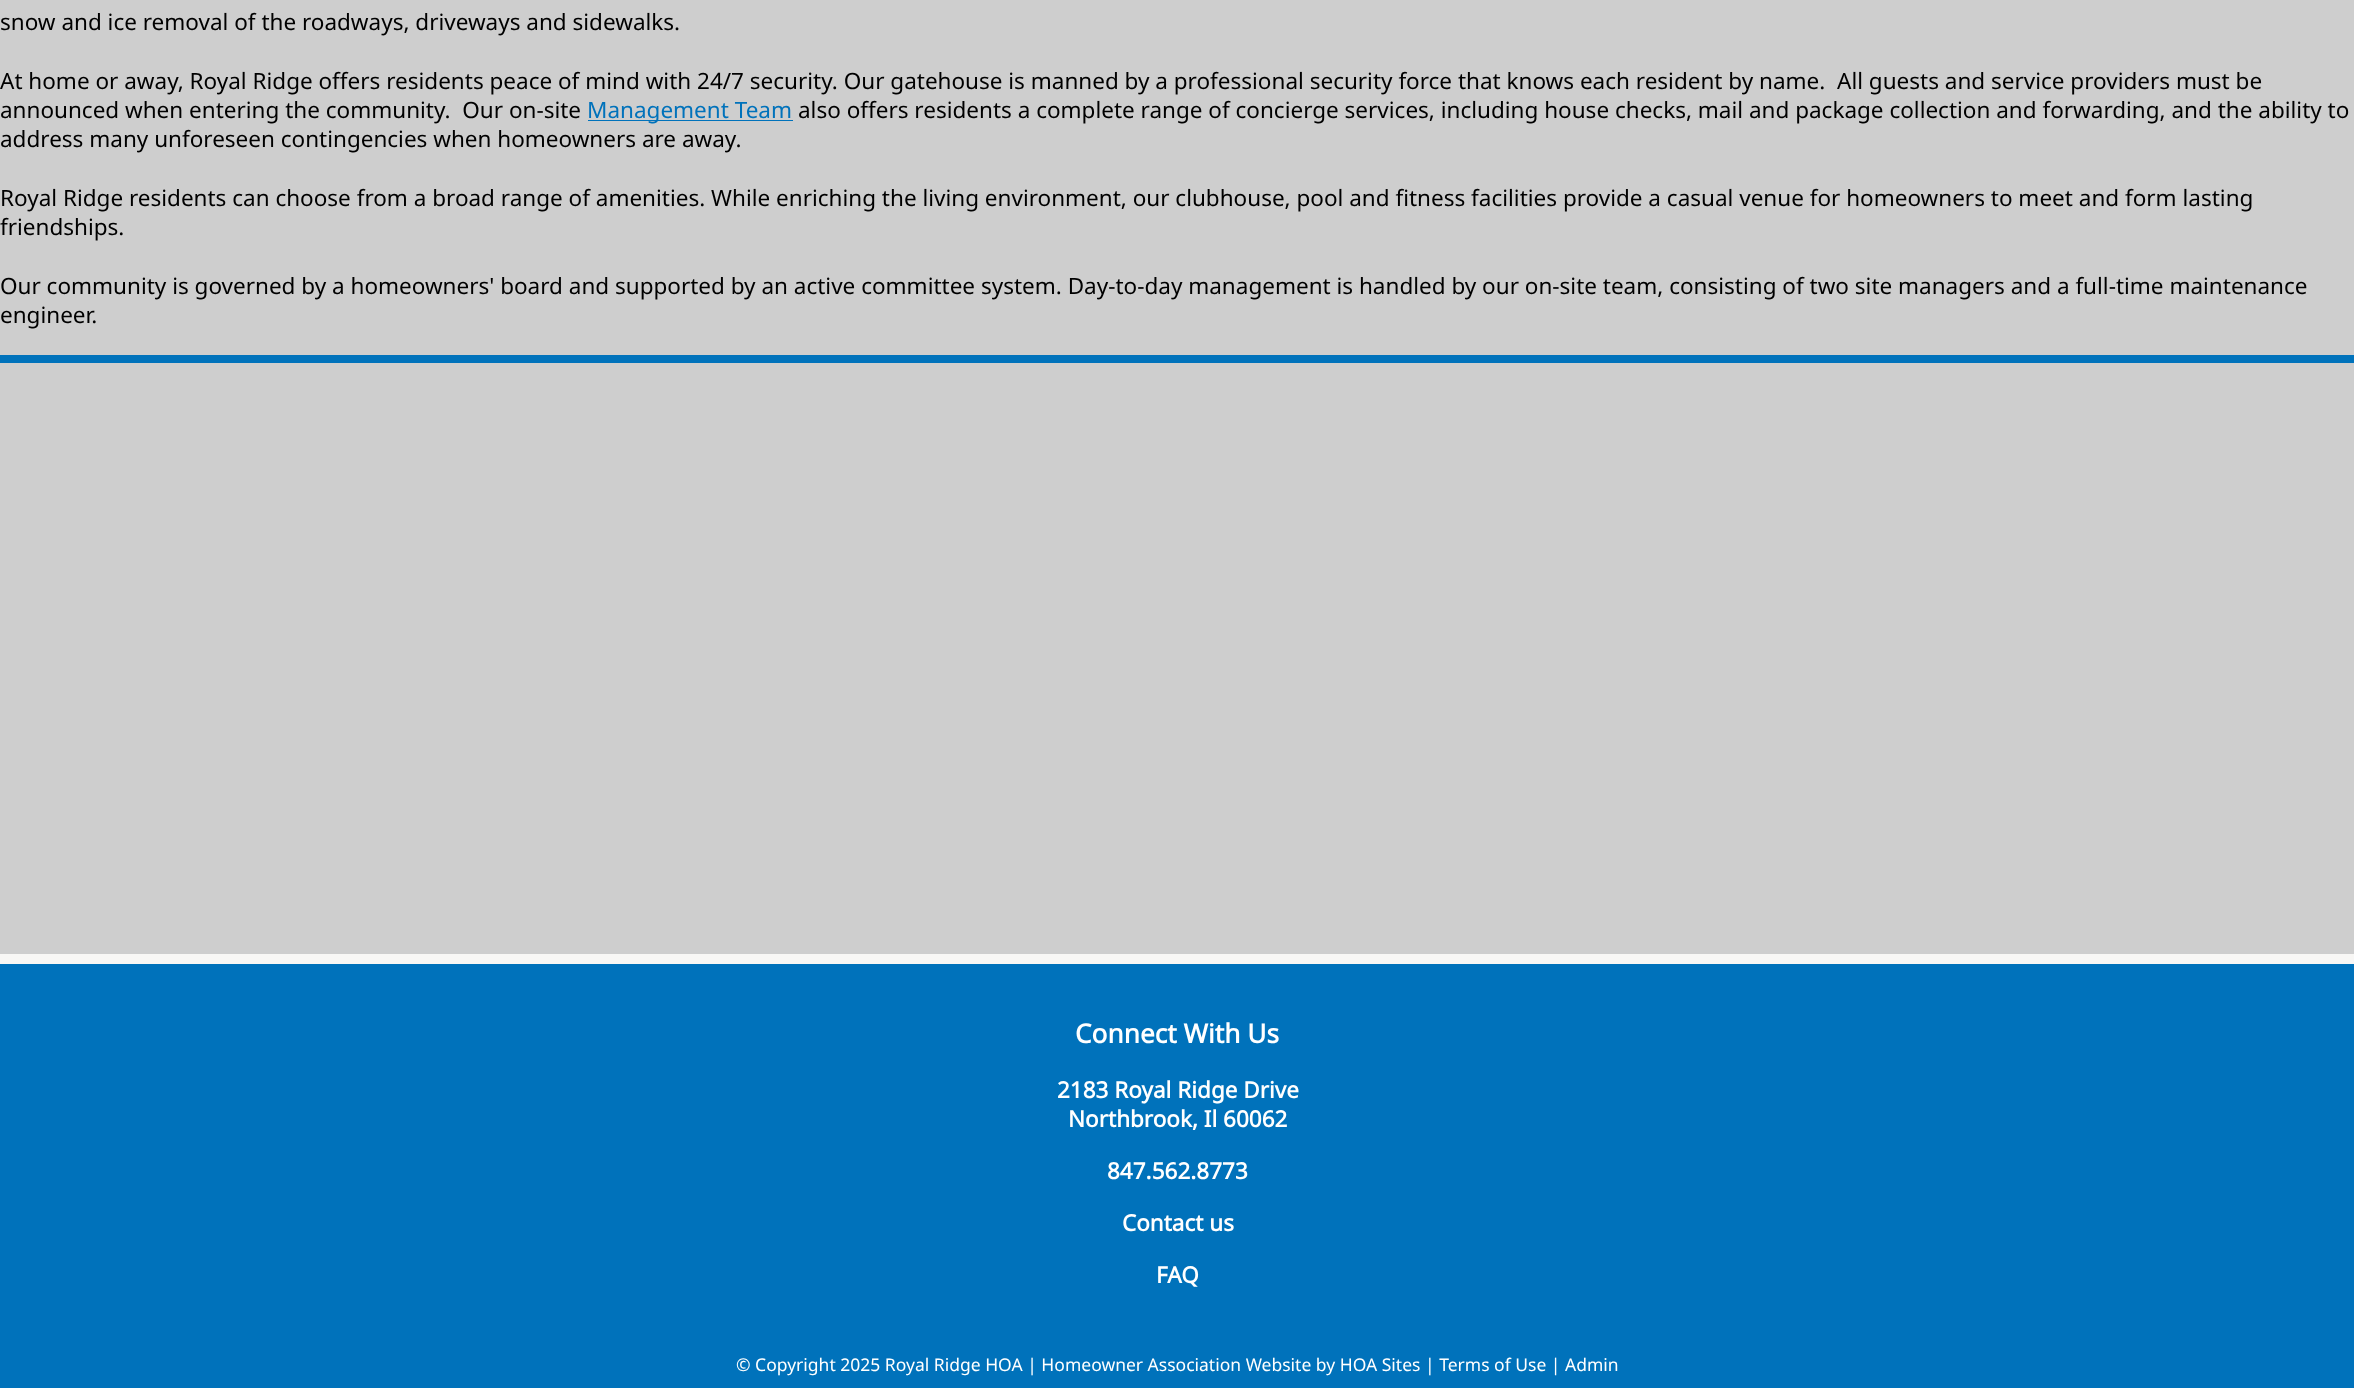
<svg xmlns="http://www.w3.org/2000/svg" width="2354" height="1388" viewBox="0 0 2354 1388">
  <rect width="100%" height="100%" fill="#cecece"/>
  <path d="M588 120h205v1H588z" fill="#0072bb"/>
  <path d="M0 355h2354v8H0z" fill="#0072bb"/>
  <path d="M0 954h2354v10H0z" fill="#f8f7f5"/>
  <path d="M0 964h2354v424H0z" fill="#0072bb"/>
  <g font-family="Noto Sans" font-size="22.5" fill="#000">
    <text x="0" y="30">snow and ice removal of the roadways, driveways and sidewalks.</text>
    <text x="0" y="89" xml:space="preserve">At home or away, Royal Ridge offers residents peace of mind with 24/7 security. Our gatehouse is manned by a professional security force that knows each resident by name.  All guests and service providers must be</text>
    <text x="0" y="118" xml:space="preserve">announced when entering the community.  Our on-site</text>
  </g>
  <text x="587" y="118" font-family="Noto Sans" font-size="22.5" fill="#0072bb">Management Team</text>
  <g font-family="Noto Sans" font-size="22.5" fill="#000">
    <text x="798" y="118">also offers residents a complete range of concierge services, including house checks, mail and package collection and forwarding, and the ability to</text>
    <text x="0" y="147">address many unforeseen contingencies when homeowners are away.</text>
    <text x="0" y="206">Royal Ridge residents can choose from a broad range of amenities. While enriching the living environment, our clubhouse, pool and fitness facilities provide a casual venue for homeowners to meet and form lasting</text>
    <text x="0" y="235">friendships.</text>
    <text x="0" y="294">Our community is governed by a homeowners' board and supported by an active committee system. Day-to-day management is handled by our on-site team, consisting of two site managers and a full-time maintenance</text>
    <text x="0" y="323">engineer.</text>
  </g>
  <text x="1075" y="1043" font-family="Noto Sans" font-size="26.25" font-weight="bold" fill="#fff">Connect With Us</text>
  <g font-family="Noto Sans" font-size="22.5" font-weight="bold" fill="#fff">
    <text x="1057" y="1098">2183 Royal Ridge Drive</text>
    <text x="1068" y="1127">Northbrook, Il 60062</text>
    <text x="1107" y="1179">847.562.8773</text>
    <text x="1122" y="1231">Contact us</text>
    <text x="1156" y="1283">FAQ</text>
  </g>
  <text x="736" y="1371" font-family="Noto Sans" font-size="17.5" fill="#fff">© Copyright 2025 Royal Ridge HOA | Homeowner Association Website by HOA Sites | Terms of Use | Admin</text>
</svg>
